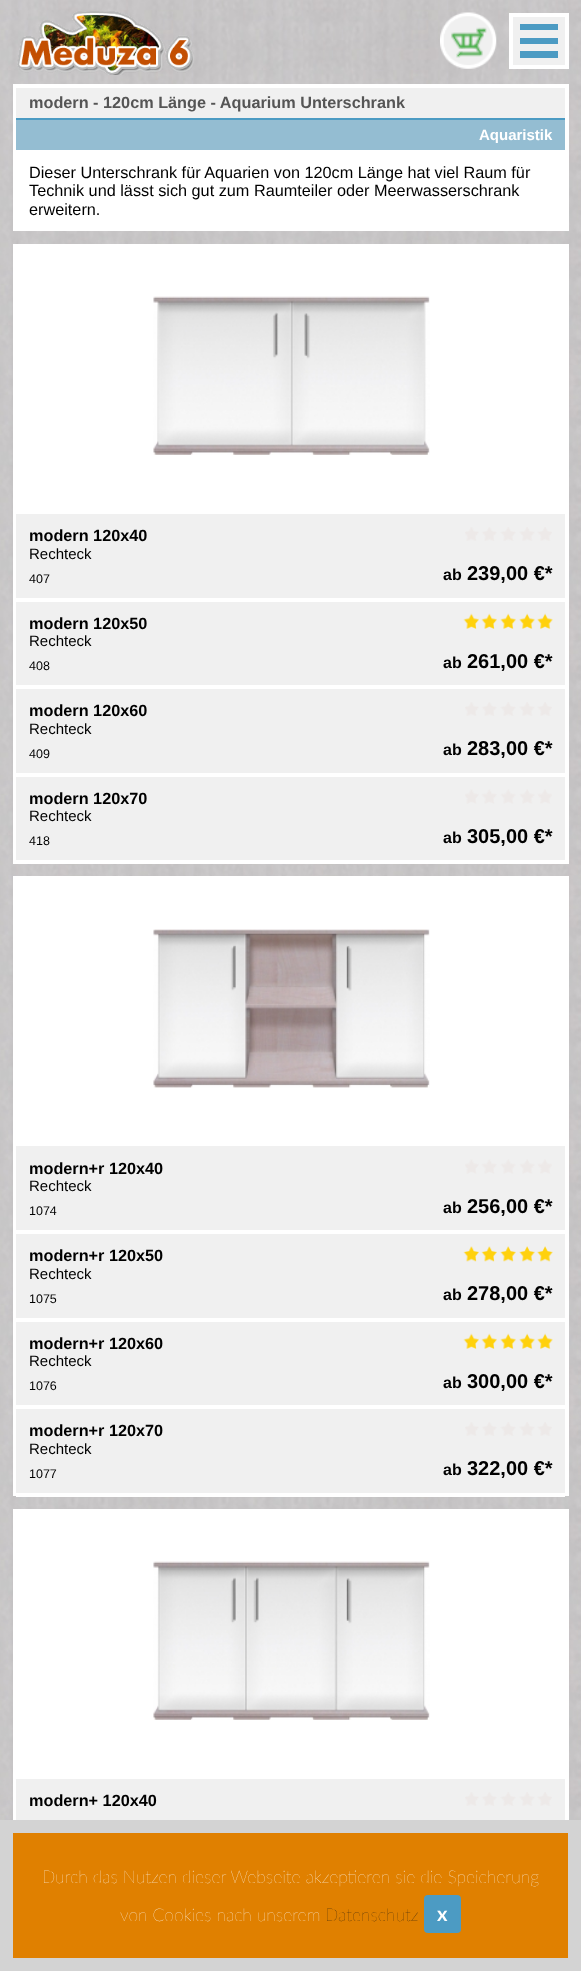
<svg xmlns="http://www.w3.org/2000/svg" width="581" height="1971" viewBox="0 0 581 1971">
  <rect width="100%" height="100%" fill="#fff"/>
  <image x="0" y="0" width="581" height="1820" href="img/1.png"/>
  <image x="17" y="11" width="177" height="64" href="img/2.png"/>
  <image x="440" y="12" width="57" height="57" href="img/3.png"/>
  <path d="M511 15h56v52H511z" fill="#f0f0f0" stroke="#fff" stroke-width="4"/>
  <path d="M520 24h38v6H520z" fill="#4c9bc3"/>
  <path d="M520 38h38v6H520z" fill="#4c9bc3"/>
  <path d="M520 51h38v7H520z" fill="#4c9bc3"/>
  <path d="M13 84h556v147H13z" fill="#fff"/>
  <path d="M16 88h549v30H16z" fill="#f0f0f0"/>
  <path d="M16 118h549v2H16z" fill="#4c9bc3"/>
  <path d="M16 120h549v30H16z" fill="#94bdd2"/>
  <path d="M13 244h556v620H13z" fill="#fff"/>
  <image x="153" y="296" width="277" height="159" href="img/4.png"/>
  <path d="M16 514h549v346H16z" fill="#f0f0f0"/>
  <path d="M16 598h549v4H16z" fill="#fff"/>
  <image x="465" y="527" width="87" height="14" href="img/5.png"/>
  <path d="M16 685h549v4H16z" fill="#fff"/>
  <image x="463" y="613" width="90" height="16" href="img/6.png"/>
  <path d="M16 773h549v4H16z" fill="#fff"/>
  <image x="465" y="702" width="87" height="14" href="img/5.png"/>
  <image x="465" y="789" width="87" height="15" href="img/7.png"/>
  <path d="M13 876h556v620H13z" fill="#fff"/>
  <image x="153" y="929" width="277" height="159" href="img/8.png"/>
  <path d="M16 1146h549v347H16z" fill="#f0f0f0"/>
  <path d="M16 1230h549v4H16z" fill="#fff"/>
  <image x="465" y="1159" width="87" height="15" href="img/7.png"/>
  <path d="M16 1318h549v4H16z" fill="#fff"/>
  <image x="463" y="1246" width="90" height="16" href="img/9.png"/>
  <path d="M16 1405h549v4H16z" fill="#fff"/>
  <image x="463" y="1333" width="90" height="16" href="img/6.png"/>
  <path d="M16 1496h549v1H16z" fill="#fff"/>
  <image x="465" y="1422" width="87" height="14" href="img/5.png"/>
  <path d="M13 1509h556v311H13z" fill="#fff"/>
  <image x="153" y="1561" width="277" height="159" href="img/10.png"/>
  <path d="M16 1779h549v41H16z" fill="#f0f0f0"/>
  <image x="465" y="1792" width="87" height="14" href="img/5.png"/>
  <path d="M6.5 1826.5h568v138H6.5z" fill="#e08000" stroke="#d3d3d3" stroke-width="13"/>
  <rect x="424" y="1895" width="37" height="38" rx="4" fill="#4c9bc3"/>
  <text x="29" y="108" font-family="Liberation Sans" font-size="16.25" font-weight="bold" fill="#555">modern - 120cm Länge - Aquarium Unterschrank</text>
  <text x="479" y="140" font-family="Liberation Sans" font-size="15" font-weight="bold" fill="#fff">Aquaristik</text>
  <g font-family="Liberation Sans" font-size="16.25" fill="#000">
    <text x="29" y="178">Dieser Unterschrank für Aquarien von 120cm Länge hat viel Raum für</text>
    <text x="29" y="196">Technik und lässt sich gut zum Raumteiler oder Meerwasserschrank</text>
    <text x="29" y="215">erweitern.</text>
  </g>
  <text x="29" y="541" font-family="Liberation Sans" font-size="16.25" font-weight="bold" fill="#000">modern 120x40</text>
  <text x="29" y="559" font-family="Liberation Sans" font-size="15" fill="#000">Rechteck</text>
  <text x="29" y="583" font-family="Liberation Sans" font-size="12.5" fill="#000">407</text>
  <text x="443" y="580" font-family="Liberation Sans" font-size="16" font-weight="bold" fill="#000">ab</text>
  <text x="467" y="580" font-family="Liberation Sans" font-size="20" font-weight="bold" fill="#000">239,00 €*</text>
  <text x="29" y="629" font-family="Liberation Sans" font-size="16.25" font-weight="bold" fill="#000">modern 120x50</text>
  <text x="29" y="646" font-family="Liberation Sans" font-size="15" fill="#000">Rechteck</text>
  <text x="29" y="670" font-family="Liberation Sans" font-size="12.5" fill="#000">408</text>
  <text x="443" y="668" font-family="Liberation Sans" font-size="16" font-weight="bold" fill="#000">ab</text>
  <text x="467" y="668" font-family="Liberation Sans" font-size="20" font-weight="bold" fill="#000">261,00 €*</text>
  <text x="29" y="716" font-family="Liberation Sans" font-size="16.25" font-weight="bold" fill="#000">modern 120x60</text>
  <text x="29" y="734" font-family="Liberation Sans" font-size="15" fill="#000">Rechteck</text>
  <text x="29" y="758" font-family="Liberation Sans" font-size="12.5" fill="#000">409</text>
  <text x="443" y="755" font-family="Liberation Sans" font-size="16" font-weight="bold" fill="#000">ab</text>
  <text x="467" y="755" font-family="Liberation Sans" font-size="20" font-weight="bold" fill="#000">283,00 €*</text>
  <text x="29" y="804" font-family="Liberation Sans" font-size="16.25" font-weight="bold" fill="#000">modern 120x70</text>
  <text x="29" y="821" font-family="Liberation Sans" font-size="15" fill="#000">Rechteck</text>
  <text x="29" y="845" font-family="Liberation Sans" font-size="12.5" fill="#000">418</text>
  <text x="443" y="843" font-family="Liberation Sans" font-size="16" font-weight="bold" fill="#000">ab</text>
  <text x="467" y="843" font-family="Liberation Sans" font-size="20" font-weight="bold" fill="#000">305,00 €*</text>
  <text x="29" y="1174" font-family="Liberation Sans" font-size="16.25" font-weight="bold" fill="#000">modern+r 120x40</text>
  <text x="29" y="1191" font-family="Liberation Sans" font-size="15" fill="#000">Rechteck</text>
  <text x="29" y="1215" font-family="Liberation Sans" font-size="12.5" fill="#000">1074</text>
  <text x="443" y="1213" font-family="Liberation Sans" font-size="16" font-weight="bold" fill="#000">ab</text>
  <text x="467" y="1213" font-family="Liberation Sans" font-size="20" font-weight="bold" fill="#000">256,00 €*</text>
  <text x="29" y="1261" font-family="Liberation Sans" font-size="16.25" font-weight="bold" fill="#000">modern+r 120x50</text>
  <text x="29" y="1279" font-family="Liberation Sans" font-size="15" fill="#000">Rechteck</text>
  <text x="29" y="1303" font-family="Liberation Sans" font-size="12.5" fill="#000">1075</text>
  <text x="443" y="1300" font-family="Liberation Sans" font-size="16" font-weight="bold" fill="#000">ab</text>
  <text x="467" y="1300" font-family="Liberation Sans" font-size="20" font-weight="bold" fill="#000">278,00 €*</text>
  <text x="29" y="1349" font-family="Liberation Sans" font-size="16.25" font-weight="bold" fill="#000">modern+r 120x60</text>
  <text x="29" y="1366" font-family="Liberation Sans" font-size="15" fill="#000">Rechteck</text>
  <text x="29" y="1390" font-family="Liberation Sans" font-size="12.5" fill="#000">1076</text>
  <text x="443" y="1388" font-family="Liberation Sans" font-size="16" font-weight="bold" fill="#000">ab</text>
  <text x="467" y="1388" font-family="Liberation Sans" font-size="20" font-weight="bold" fill="#000">300,00 €*</text>
  <text x="29" y="1436" font-family="Liberation Sans" font-size="16.25" font-weight="bold" fill="#000">modern+r 120x70</text>
  <text x="29" y="1454" font-family="Liberation Sans" font-size="15" fill="#000">Rechteck</text>
  <text x="29" y="1478" font-family="Liberation Sans" font-size="12.5" fill="#000">1077</text>
  <text x="443" y="1475" font-family="Liberation Sans" font-size="16" font-weight="bold" fill="#000">ab</text>
  <text x="467" y="1475" font-family="Liberation Sans" font-size="20" font-weight="bold" fill="#000">322,00 €*</text>
  <text x="29" y="1806" font-family="Liberation Sans" font-size="16.25" font-weight="bold" fill="#000">modern+ 120x40</text>
  <g font-family="Lato" font-size="17.5" font-weight="200" fill="#fff">
    <text x="42" y="1883">Durch das Nutzen dieser Webseite akzeptieren sie die Speicherung</text>
    <text x="120" y="1921">von Cookies nach unserem</text>
  </g>
  <text x="325" y="1921" font-family="Lato" font-size="17.5" font-weight="200" fill="#111">Datenschutz</text>
  <text x="437" y="1921" font-family="Lato" font-size="20" font-weight="bold" fill="#fff">x</text>
</svg>
